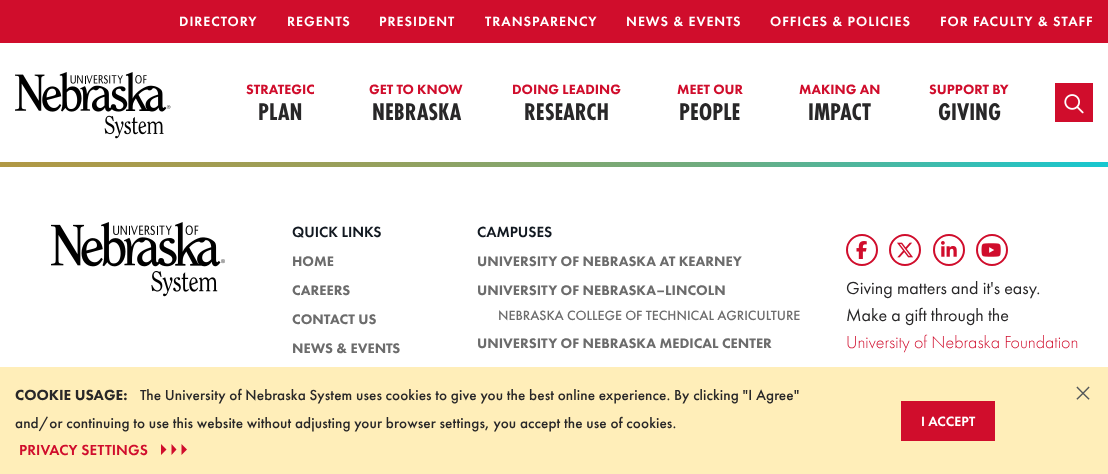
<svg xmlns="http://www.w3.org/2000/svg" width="1108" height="474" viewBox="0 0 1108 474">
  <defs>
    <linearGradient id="g1" gradientUnits="userSpaceOnUse" x1="0" y1="165" x2="1108" y2="164"><stop offset="0" stop-color="#b19844"/><stop offset="0.33" stop-color="#97a05c"/><stop offset="0.64" stop-color="#6fac7f"/><stop offset="1" stop-color="#17c7d0"/></linearGradient>
  </defs>
  <rect width="100%" height="100%" fill="#fff"/>
  <path d="M0 0h1108v43H0z" fill="#d00d2c"/>
  <image x="15" y="72" width="156" height="67" href="img/1.png"/>
  <path d="M1055 83h38v39H1055z" fill="#d00d2c"/>
  <image x="1064" y="94" width="20" height="20" href="img/2.png"/>
  <path d="M0 162h1108v5H0z" fill="url(#g1)"/>
  <path d="M0 367h1108v107H0z" fill="#ffeeb9"/>
  <path d="M161 444V455L166.5 449.5ZM171.5 444V455L176.5 449.5ZM181.5 444V455L187 449.5Z" fill="#d00d2c"/>
  <path d="M901 401h94v40H901z" fill="#d00d2c"/>
  <image x="51" y="222" width="174" height="75" href="img/3.png"/>
  <circle cx="862" cy="250" r="15" fill="none" stroke="#d00d2c" stroke-width="2"/>
  <image x="856" y="241" width="11" height="18" href="img/4.png"/>
  <circle cx="905" cy="250" r="15" fill="none" stroke="#d00d2c" stroke-width="2"/>
  <image x="897" y="242" width="16" height="16" href="img/5.png"/>
  <circle cx="949" cy="250" r="15" fill="none" stroke="#d00d2c" stroke-width="2"/>
  <image x="941" y="241" width="16" height="16" href="img/6.png"/>
  <circle cx="992" cy="250" r="15" fill="none" stroke="#d00d2c" stroke-width="2"/>
  <image x="981" y="243" width="20" height="14" href="img/7.png"/>
  <g font-family="Futura PT" font-size="14" font-weight="500" letter-spacing="1" fill="#fff">
    <text x="179" y="26">DIRECTORY</text>
    <text x="287" y="26">REGENTS</text>
    <text x="379" y="26">PRESIDENT</text>
    <text x="485" y="26">TRANSPARENCY</text>
    <text x="626" y="26">NEWS &amp; EVENTS</text>
    <text x="770" y="26">OFFICES &amp; POLICIES</text>
    <text x="940" y="26">FOR FACULTY &amp; STAFF</text>
  </g>
  <text x="246" y="94" font-family="Futura PT" font-size="14" font-weight="900" fill="#d00d2c">STRATEGIC</text>
  <text x="258" y="120" font-family="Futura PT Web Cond" font-size="25" font-weight="bold" fill="#282728">PLAN</text>
  <text x="369" y="94" font-family="Futura PT" font-size="14" font-weight="900" fill="#d00d2c">GET TO KNOW</text>
  <text x="372" y="120" font-family="Futura PT Web Cond" font-size="25" font-weight="bold" fill="#282728">NEBRASKA</text>
  <text x="512" y="94" font-family="Futura PT" font-size="14" font-weight="900" fill="#d00d2c">DOING LEADING</text>
  <text x="524" y="120" font-family="Futura PT Web Cond" font-size="25" font-weight="bold" fill="#282728">RESEARCH</text>
  <text x="677" y="94" font-family="Futura PT" font-size="14" font-weight="900" fill="#d00d2c">MEET OUR</text>
  <text x="679" y="120" font-family="Futura PT Web Cond" font-size="25" font-weight="bold" fill="#282728">PEOPLE</text>
  <text x="799" y="94" font-family="Futura PT" font-size="14" font-weight="900" fill="#d00d2c">MAKING AN</text>
  <text x="808" y="120" font-family="Futura PT Web Cond" font-size="25" font-weight="bold" fill="#282728">IMPACT</text>
  <text x="929" y="94" font-family="Futura PT" font-size="14" font-weight="900" fill="#d00d2c">SUPPORT BY</text>
  <text x="938" y="120" font-family="Futura PT Web Cond" font-size="25" font-weight="bold" fill="#282728">GIVING</text>
  <text x="15" y="400" font-family="Futura PT" font-size="15.2" font-weight="900" fill="#282728">COOKIE USAGE:</text>
  <g font-family="'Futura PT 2'" font-size="15.2" font-weight="500" letter-spacing="0.1" fill="#282728">
    <text x="140" y="400">The University of Nebraska System uses cookies to give you the best online experience. By clicking "I Agree"</text>
    <text x="15" y="428">and/or continuing to use this website without adjusting your browser settings, you accept the use of cookies.</text>
  </g>
  <text x="19" y="455" font-family="Futura PT" font-size="15.2" font-weight="500" letter-spacing="0.1" fill="#d00d2c">PRIVACY SETTINGS</text>
  <text x="921" y="426" font-family="Futura PT" font-size="14" font-weight="500" fill="#fff">I ACCEPT</text>
  <text x="1074" y="405" font-family="Futura PT" font-size="36" font-weight="300" fill="#54585a">×</text>
  <text x="292" y="237" font-family="Futura PT" font-size="15.25" font-weight="500" fill="#111820">QUICK LINKS</text>
  <g font-family="Futura PT" font-size="14.4" font-weight="900" fill="#6c6c6c">
    <text x="292" y="266">HOME</text>
    <text x="292" y="295">CAREERS</text>
    <text x="292" y="324">CONTACT US</text>
    <text x="292" y="353">NEWS &amp; EVENTS</text>
  </g>
  <text x="477" y="237" font-family="Futura PT" font-size="15.25" font-weight="500" fill="#111820">CAMPUSES</text>
  <g font-family="Futura PT" font-size="14.4" font-weight="900" fill="#6c6c6c">
    <text x="477" y="266">UNIVERSITY OF NEBRASKA AT KEARNEY</text>
    <text x="477" y="295">UNIVERSITY OF NEBRASKA–LINCOLN</text>
  </g>
  <text x="498" y="320" font-family="'Futura PT 2'" font-size="14" font-weight="500" fill="#6c6c6c">NEBRASKA COLLEGE OF TECHNICAL AGRICULTURE</text>
  <text x="477" y="348" font-family="Futura PT" font-size="14.4" font-weight="900" fill="#6c6c6c">UNIVERSITY OF NEBRASKA MEDICAL CENTER</text>
  <g font-family="Futura PT" font-size="18" fill="#282728">
    <text x="846" y="294">Giving matters and it's easy.</text>
    <text x="846" y="321">Make a gift through the</text>
  </g>
  <text x="846" y="348" font-family="Futura PT" font-size="18" font-weight="300" fill="#d00d2c">University of Nebraska Foundation</text>
</svg>
